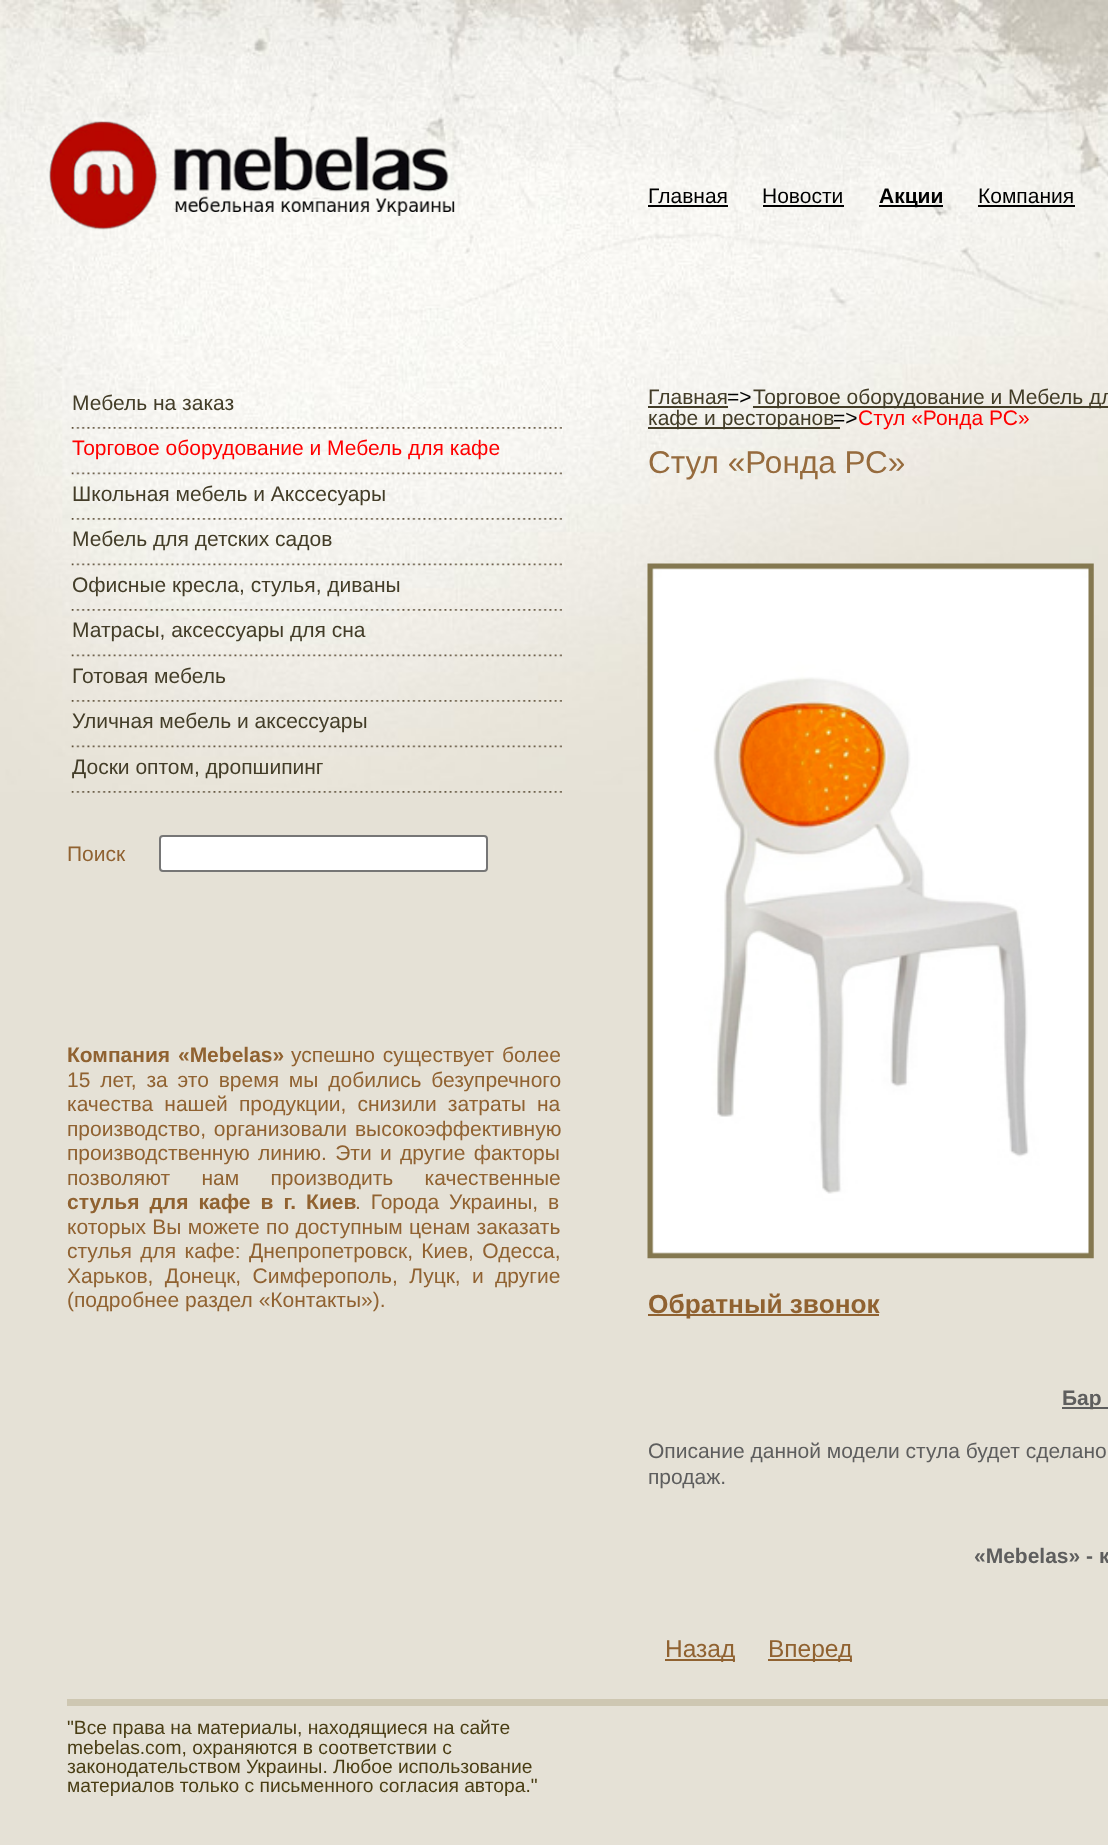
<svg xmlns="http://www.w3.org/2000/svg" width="1108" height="1845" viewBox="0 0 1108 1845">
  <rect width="100%" height="100%" fill="#e5e1d6"/>
  <image x="0" y="0" width="1108" height="792" href="img/1.png"/>
  <image x="49" y="121" width="406" height="109" href="img/2.png"/>
  <path d="M648 205h80v2H648z" fill="#000"/>
  <path d="M763 205h81v2H763z" fill="#000"/>
  <path d="M879 205h64v2H879z" fill="#000"/>
  <path d="M978 205h97v2H978z" fill="#000"/>
  <image x="71" y="427" width="491" height="2" href="img/3.png"/>
  <image x="71" y="472" width="491" height="3" href="img/4.png"/>
  <image x="71" y="518" width="491" height="2" href="img/5.png"/>
  <image x="71" y="563" width="491" height="3" href="img/6.png"/>
  <image x="71" y="609" width="491" height="2" href="img/7.png"/>
  <image x="71" y="654" width="491" height="3" href="img/8.png"/>
  <image x="71" y="700" width="491" height="2" href="img/9.png"/>
  <image x="71" y="745" width="491" height="3" href="img/10.png"/>
  <image x="71" y="791" width="491" height="2" href="img/11.png"/>
  <rect x="160" y="836" width="327" height="35" rx="3" fill="#fff" stroke="#767676" stroke-width="2"/>
  <path d="M648 406h80v2H648z" fill="#433d28"/>
  <path d="M753 406h355v2H753z" fill="#433d28"/>
  <path d="M648 427h192v2H648z" fill="#433d28"/>
  <image x="647" y="563" width="447" height="696" href="img/12.png"/>
  <path d="M648 1314h231v2H648z" fill="#906231"/>
  <path d="M1062 1407h46v2H1062z" fill="#5e5e5e"/>
  <path d="M665 1659h70v2H665z" fill="#906231"/>
  <path d="M768 1659h84v2H768z" fill="#906231"/>
  <path d="M67 1699h1041v7H67z" fill="#cec7b2"/>
  <g font-family="Liberation Sans" font-size="21" fill="#000">
    <text x="648" y="203">Главная</text>
    <text x="762" y="203">Новости</text>
  </g>
  <text x="879" y="203" font-family="Liberation Sans" font-size="21" font-weight="bold" fill="#000">Акции</text>
  <text x="978" y="203" font-family="Liberation Sans" font-size="21" fill="#000">Компания</text>
  <text x="72" y="410" font-family="Liberation Sans" font-size="21" fill="#433d28">Мебель на заказ</text>
  <text x="72" y="455" font-family="Liberation Sans" font-size="21" fill="#f00">Торговое оборудование и Мебель для кафе</text>
  <g font-family="Liberation Sans" font-size="21" fill="#433d28">
    <text x="72" y="501">Школьная мебель и Акссесуары</text>
    <text x="72" y="546">Мебель для детских садов</text>
    <text x="72" y="592">Офисные кресла, стулья, диваны</text>
    <text x="72" y="637">Матраcы, аксессуары для сна</text>
    <text x="72" y="683">Готовая мебель</text>
    <text x="72" y="728">Уличная мебель и аксессуары</text>
    <text x="72" y="774">Доски оптом, дропшипинг</text>
  </g>
  <text x="67" y="861" font-family="Liberation Sans" font-size="21" fill="#906231">Поиск</text>
  <text x="67" y="1062" word-spacing="2" font-family="Liberation Sans" font-size="21" font-weight="bold" fill="#906231">Компания «Mebelas»</text>
  <g font-family="Liberation Sans" font-size="21" fill="#906231">
    <text x="291" y="1062" word-spacing="2">успешно существует более</text>
    <text x="67" y="1087" word-spacing="4">15 лет, за это время мы добились безупречного</text>
    <text x="67" y="1111" word-spacing="5.25">качества нашей продукции, снизили затраты на</text>
    <text x="67" y="1136" word-spacing="2">производство, организовали высокоэффективную</text>
    <text x="67" y="1160" word-spacing="2.5">производственную линию. Эти и другие факторы</text>
    <text x="67" y="1185" word-spacing="25.5">позволяют нам производить качественные</text>
  </g>
  <text x="67" y="1209" word-spacing="4.25" font-family="Liberation Sans" font-size="21" font-weight="bold" fill="#906231">стулья для кафе в г. Киев</text>
  <g font-family="Liberation Sans" font-size="21" fill="#906231">
    <text x="355" y="1209" word-spacing="4">. Города Украины, в</text>
    <text x="67" y="1234" word-spacing="0.5">которых Вы можете по доступным ценам заказать</text>
    <text x="67" y="1258" word-spacing="2.5">стулья для кафе: Днепропетровск, Киев, Одесса,</text>
    <text x="67" y="1283" word-spacing="5.5">Харьков, Донецк, Симферополь, Луцк, и другие</text>
    <text x="67" y="1307">(подробнее раздел «Контакты»).</text>
  </g>
  <text x="648" y="404" font-family="Liberation Sans" font-size="21" fill="#433d28">Главная</text>
  <text x="727" y="404" font-family="Liberation Sans" font-size="21" fill="#000">=&gt;</text>
  <g font-family="Liberation Sans" font-size="21" fill="#433d28">
    <text x="753" y="404">Торговое оборудование и Мебель дл</text>
    <text x="648" y="425">кафе и ресторанов</text>
  </g>
  <text x="833" y="425" font-family="Liberation Sans" font-size="21" fill="#000">=&gt;</text>
  <text x="858" y="425" font-family="Liberation Sans" font-size="21" fill="#f00">Стул «Ронда РС»</text>
  <text x="648" y="473" font-family="Liberation Sans" font-size="31.5" fill="#966b3d">Стул «Ронда РС»</text>
  <text x="648" y="1313" font-family="Liberation Sans" font-size="26.25" font-weight="bold" fill="#906231">Обратный звонок</text>
  <text x="1062" y="1405" font-family="Liberation Sans" font-size="21" font-weight="bold" fill="#5e5e5e">Бар</text>
  <g font-family="Liberation Sans" font-size="21" fill="#5e5e5e">
    <text x="648" y="1458">Описание данной модели стула будет сделано</text>
    <text x="648" y="1484">продаж.</text>
  </g>
  <text x="974" y="1563" font-family="Liberation Sans" font-size="21" font-weight="bold" fill="#5e5e5e">«Mebelas» - к</text>
  <g font-family="Liberation Sans" font-size="24.5" fill="#906231">
    <text x="665" y="1657">Назад</text>
    <text x="768" y="1657">Вперед</text>
  </g>
  <g font-family="Liberation Sans" font-size="19.25" fill="#493d14">
    <text x="67" y="1734">"Все права на материалы, находящиеся на сайте</text>
    <text x="67" y="1754">mebelas.com, охраняются в соответствии с</text>
    <text x="67" y="1773">законодательством Украины. Любое использование</text>
    <text x="67" y="1792">материалов только с письменного согласия автора."</text>
  </g>
</svg>
